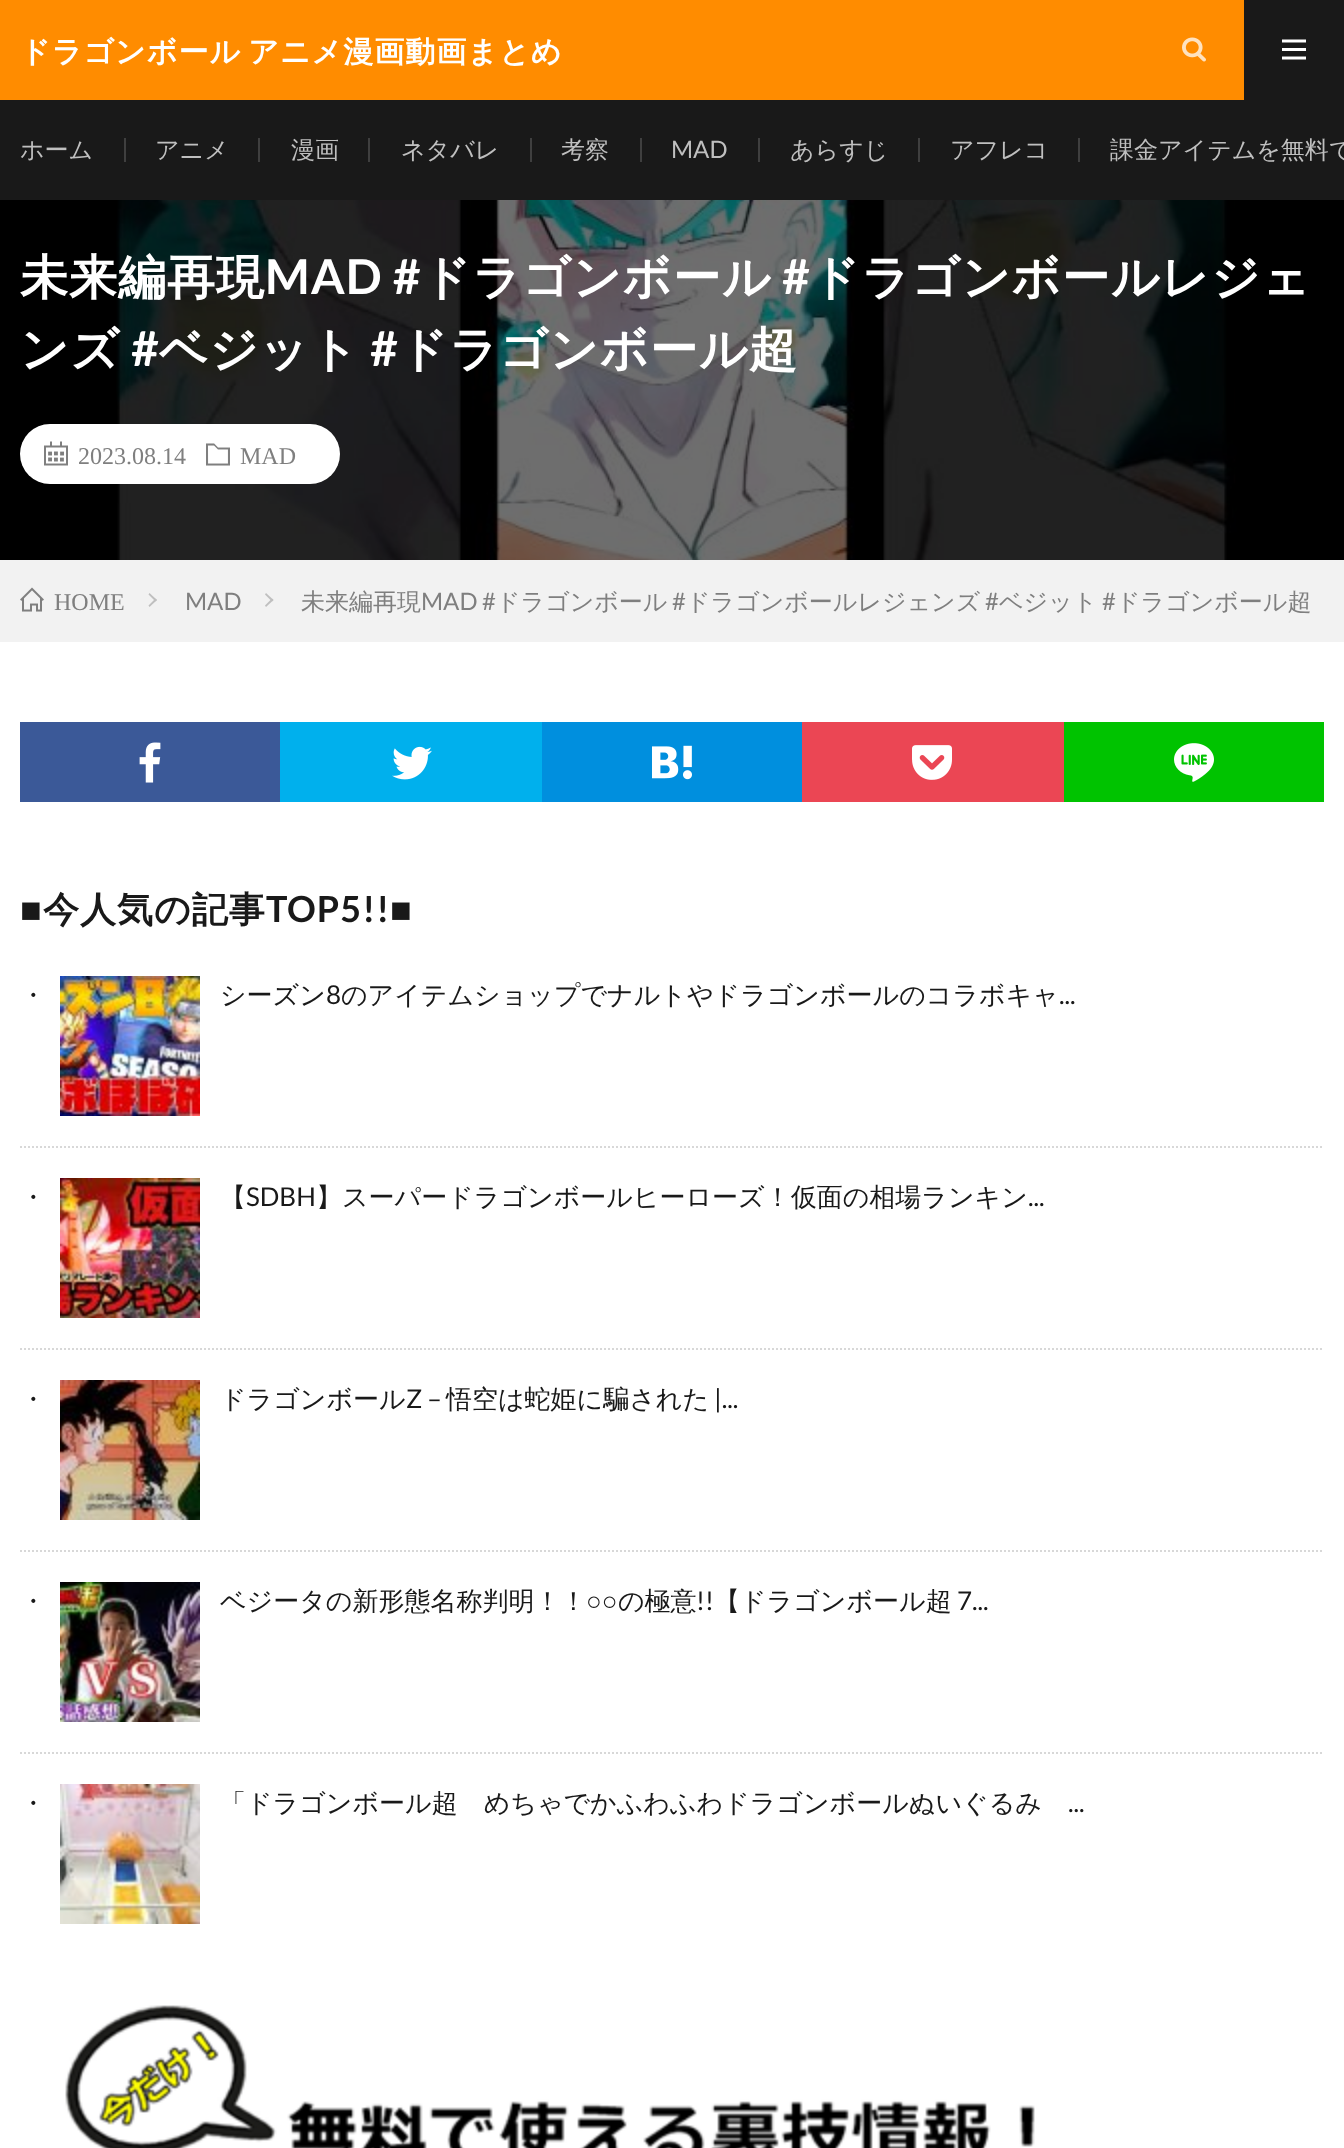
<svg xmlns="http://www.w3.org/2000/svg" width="1344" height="2148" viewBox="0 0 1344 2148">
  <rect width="100%" height="100%" fill="#fff"/>
  <path d="M0 0h1244v100H0z" fill="#ff8c00"/>
  <image x="1182" y="37" width="24" height="25" href="img/1.png"/>
  <path d="M1244 0h100v100H1244z" fill="#191919"/>
  <image x="1282" y="39" width="24" height="21" href="img/2.png"/>
  <path d="M0 100h1344v100H0z" fill="#191919"/>
  <path d="M124 138h2v24H124z" fill="#3f3f3f"/>
  <path d="M258 138h2v24H258z" fill="#3f3f3f"/>
  <path d="M368 138h2v24H368z" fill="#3f3f3f"/>
  <path d="M530 138h2v24H530z" fill="#3f3f3f"/>
  <path d="M640 138h2v24H640z" fill="#3f3f3f"/>
  <path d="M758 138h2v24H758z" fill="#3f3f3f"/>
  <path d="M918 138h2v24H918z" fill="#3f3f3f"/>
  <path d="M1078 138h2v24H1078z" fill="#3f3f3f"/>
  <image x="0" y="200" width="1344" height="360" href="img/3.png"/>
  <rect x="20" y="424" width="320" height="60" rx="30" fill="#fff"/>
  <image x="44" y="441" width="24" height="25" href="img/4.png"/>
  <image x="206" y="443" width="24" height="23" href="img/5.png"/>
  <path d="M0 560h1344v82H0z" fill="#f2f2f2"/>
  <image x="20" y="587" width="24" height="25" href="img/6.png"/>
  <path d="M149.5 593L157 600L155.5 601.5L148.5 594.5Z" fill="#bfbfbf"/>
  <path d="M155.5 598.5L157 600L149.5 607L148.5 605.5Z" fill="#bfbfbf"/>
  <path d="M266 593L273.5 600L272 601.5L265 594.5Z" fill="#bfbfbf"/>
  <path d="M272 598.5L273.5 600L266 607L265 605.5Z" fill="#bfbfbf"/>
  <path d="M20 722h260v80H20z" fill="#3b5998"/>
  <image x="139" y="742" width="22" height="41" href="img/7.png"/>
  <path d="M280 722h262v80H280z" fill="#00b0ed"/>
  <image x="392" y="746" width="40" height="34" href="img/8.png"/>
  <path d="M542 722h260v80H542z" fill="#008fde"/>
  <image x="652" y="745" width="40" height="35" href="img/9.png"/>
  <path d="M802 722h262v80H802z" fill="#eb4654"/>
  <image x="912" y="745" width="40" height="35" href="img/10.png"/>
  <path d="M1064 722h260v80H1064z" fill="#00c300"/>
  <image x="1174" y="743" width="40" height="39" href="img/11.png"/>
  <image x="60" y="976" width="140" height="140" href="img/12.png"/>
  <path d="M20 1147H1324" fill="none" stroke="#d8d8d8" stroke-width="2" stroke-dasharray="2 2"/>
  <image x="60" y="1178" width="140" height="140" href="img/13.png"/>
  <path d="M20 1349H1324" fill="none" stroke="#d8d8d8" stroke-width="2" stroke-dasharray="2 2"/>
  <image x="60" y="1380" width="140" height="140" href="img/14.png"/>
  <path d="M20 1551H1324" fill="none" stroke="#d8d8d8" stroke-width="2" stroke-dasharray="2 2"/>
  <image x="60" y="1582" width="140" height="140" href="img/15.png"/>
  <path d="M20 1753H1324" fill="none" stroke="#d8d8d8" stroke-width="2" stroke-dasharray="2 2"/>
  <image x="60" y="1784" width="140" height="140" href="img/16.png"/>
  <image x="65" y="2005" width="970" height="143" href="img/17.png"/>
  <text x="20" y="62" word-spacing="-3" font-family="WenQuanYi Zen Hei" font-size="30" font-weight="bold" letter-spacing="1" fill="#fff">ドラゴンボール アニメ漫画動画まとめ</text>
  <g font-family="WenQuanYi Zen Hei" font-size="24" font-weight="500" fill="#bfbfbf">
    <text x="20" y="158">ホーム</text>
    <text x="155" y="158">アニメ</text>
    <text x="291" y="158">漫画</text>
    <text x="401" y="158">ネタバレ</text>
    <text x="561" y="158">考察</text>
  </g>
  <text x="671" y="158" font-family="Lato" font-size="24" fill="#bfbfbf">MAD</text>
  <g font-family="WenQuanYi Zen Hei" font-size="24" font-weight="500" fill="#bfbfbf">
    <text x="790" y="158">あらすじ</text>
    <text x="950" y="158">アフレコ</text>
    <text x="1110" y="158">課金アイテムを無料で</text>
  </g>
  <text x="20" y="294" font-family="WenQuanYi Zen Hei" font-size="48" font-weight="bold" letter-spacing="1" fill="#fff">未来編再現</text>
  <text x="265" y="294" font-family="Lato" font-size="48" font-weight="bold" letter-spacing="1" fill="#fff">MAD #</text>
  <text x="422" y="294" font-family="WenQuanYi Zen Hei" font-size="48" font-weight="bold" letter-spacing="1" fill="#fff">ドラゴンボール</text>
  <text x="782" y="294" font-family="Lato" font-size="48" font-weight="bold" letter-spacing="1" fill="#fff">#</text>
  <g font-family="WenQuanYi Zen Hei" font-size="48" font-weight="bold" letter-spacing="1" fill="#fff">
    <text x="811" y="294">ドラゴンボールレジェ</text>
    <text x="20" y="366">ンズ</text>
  </g>
  <text x="131" y="366" font-family="Lato" font-size="48" font-weight="bold" letter-spacing="1" fill="#fff">#</text>
  <text x="159" y="366" font-family="WenQuanYi Zen Hei" font-size="48" font-weight="bold" letter-spacing="1" fill="#fff">ベジット</text>
  <text x="370" y="366" font-family="Lato" font-size="48" font-weight="bold" letter-spacing="1" fill="#fff">#</text>
  <text x="399" y="366" font-family="WenQuanYi Zen Hei" font-size="48" font-weight="bold" letter-spacing="1" fill="#fff">ドラゴンボール超</text>
  <g font-family="Liberation Serif" font-size="24" fill="#7f7f7f">
    <text x="78" y="464">2023.08.14</text>
    <text x="240" y="464">MAD</text>
    <text x="54" y="610">HOME</text>
  </g>
  <text x="185" y="610" font-family="Lato" font-size="24" fill="#7f7f7f">MAD</text>
  <text x="301" y="610" font-family="WenQuanYi Zen Hei" font-size="24" font-weight="500" fill="#7f7f7f">未来編再現</text>
  <text x="421" y="610" font-family="Lato" font-size="24" fill="#7f7f7f">MAD #</text>
  <text x="496" y="610" font-family="WenQuanYi Zen Hei" font-size="24" font-weight="500" fill="#7f7f7f">ドラゴンボール</text>
  <text x="672" y="610" font-family="Lato" font-size="24" fill="#7f7f7f">#</text>
  <text x="686" y="610" font-family="WenQuanYi Zen Hei" font-size="24" font-weight="500" fill="#7f7f7f">ドラゴンボールレジェンズ</text>
  <text x="985" y="610" font-family="Lato" font-size="24" fill="#7f7f7f">#</text>
  <text x="999" y="610" font-family="WenQuanYi Zen Hei" font-size="24" font-weight="500" fill="#7f7f7f">ベジット</text>
  <text x="1102" y="610" font-family="Lato" font-size="24" fill="#7f7f7f">#</text>
  <text x="1116" y="610" font-family="WenQuanYi Zen Hei" font-size="24" font-weight="500" fill="#7f7f7f">ドラゴンボール超</text>
  <text x="20" y="922" font-family="Liberation Serif" font-size="36" font-weight="bold" letter-spacing="1" fill="#191919">■</text>
  <text x="43" y="922" font-family="WenQuanYi Zen Hei" font-size="36" font-weight="bold" letter-spacing="1" fill="#191919">今人気の記事</text>
  <text x="266" y="922" font-family="Lato" font-size="36" font-weight="bold" letter-spacing="1" fill="#191919">TOP5!!</text>
  <text x="390" y="922" font-family="Liberation Serif" font-size="36" font-weight="bold" letter-spacing="1" fill="#191919">■</text>
  <g font-family="WenQuanYi Zen Hei" font-size="26" font-weight="500" fill="#191919">
    <text x="20" y="1004">・</text>
    <text x="220" y="1004">シーズン</text>
  </g>
  <text x="326" y="1004" font-family="Lato" font-size="26" fill="#191919">8</text>
  <text x="341" y="1004" font-family="WenQuanYi Zen Hei" font-size="26" font-weight="500" fill="#191919">のアイテムショップでナルトやドラゴンボールのコラボキャ</text>
  <text x="1059" y="1004" font-family="Lato" font-size="26" fill="#191919">...</text>
  <g font-family="WenQuanYi Zen Hei" font-size="26" font-weight="500" fill="#191919">
    <text x="20" y="1206">・</text>
    <text x="220" y="1206">【</text>
  </g>
  <text x="246" y="1206" font-family="Lato" font-size="26" fill="#191919">SDBH</text>
  <text x="316" y="1206" font-family="WenQuanYi Zen Hei" font-size="26" font-weight="500" fill="#191919">】スーパードラゴンボールヒーローズ！仮面の相場ランキン</text>
  <text x="1028" y="1206" font-family="Lato" font-size="26" fill="#191919">...</text>
  <g font-family="WenQuanYi Zen Hei" font-size="26" font-weight="500" fill="#191919">
    <text x="20" y="1408">・</text>
    <text x="220" y="1408">ドラゴンボール</text>
  </g>
  <text x="406" y="1408" font-family="Lato" font-size="26" fill="#191919">Z –</text>
  <text x="446" y="1408" font-family="WenQuanYi Zen Hei" font-size="26" font-weight="500" fill="#191919">悟空は蛇姫に騙された</text>
  <text x="714" y="1408" font-family="Lato" font-size="26" fill="#191919">|...</text>
  <g font-family="WenQuanYi Zen Hei" font-size="26" font-weight="500" fill="#191919">
    <text x="20" y="1610">・</text>
    <text x="220" y="1610">ベジータの新形態名称判明！！</text>
  </g>
  <text x="586" y="1610" font-family="Liberation Serif" font-size="26" fill="#191919">○○</text>
  <text x="618" y="1610" font-family="WenQuanYi Zen Hei" font-size="26" font-weight="500" fill="#191919">の極意</text>
  <text x="696" y="1610" font-family="Lato" font-size="26" fill="#191919">!!</text>
  <text x="714" y="1610" font-family="WenQuanYi Zen Hei" font-size="26" font-weight="500" fill="#191919">【ドラゴンボール超</text>
  <text x="957" y="1610" font-family="Lato" font-size="26" fill="#191919">7...</text>
  <g font-family="WenQuanYi Zen Hei" font-size="26" font-weight="500" fill="#191919">
    <text x="20" y="1812">・</text>
    <text x="220" y="1812">「ドラゴンボール超　めちゃでかふわふわドラゴンボールぬいぐるみ</text>
  </g>
  <text x="1068" y="1812" font-family="Lato" font-size="26" fill="#191919">...</text>
</svg>
